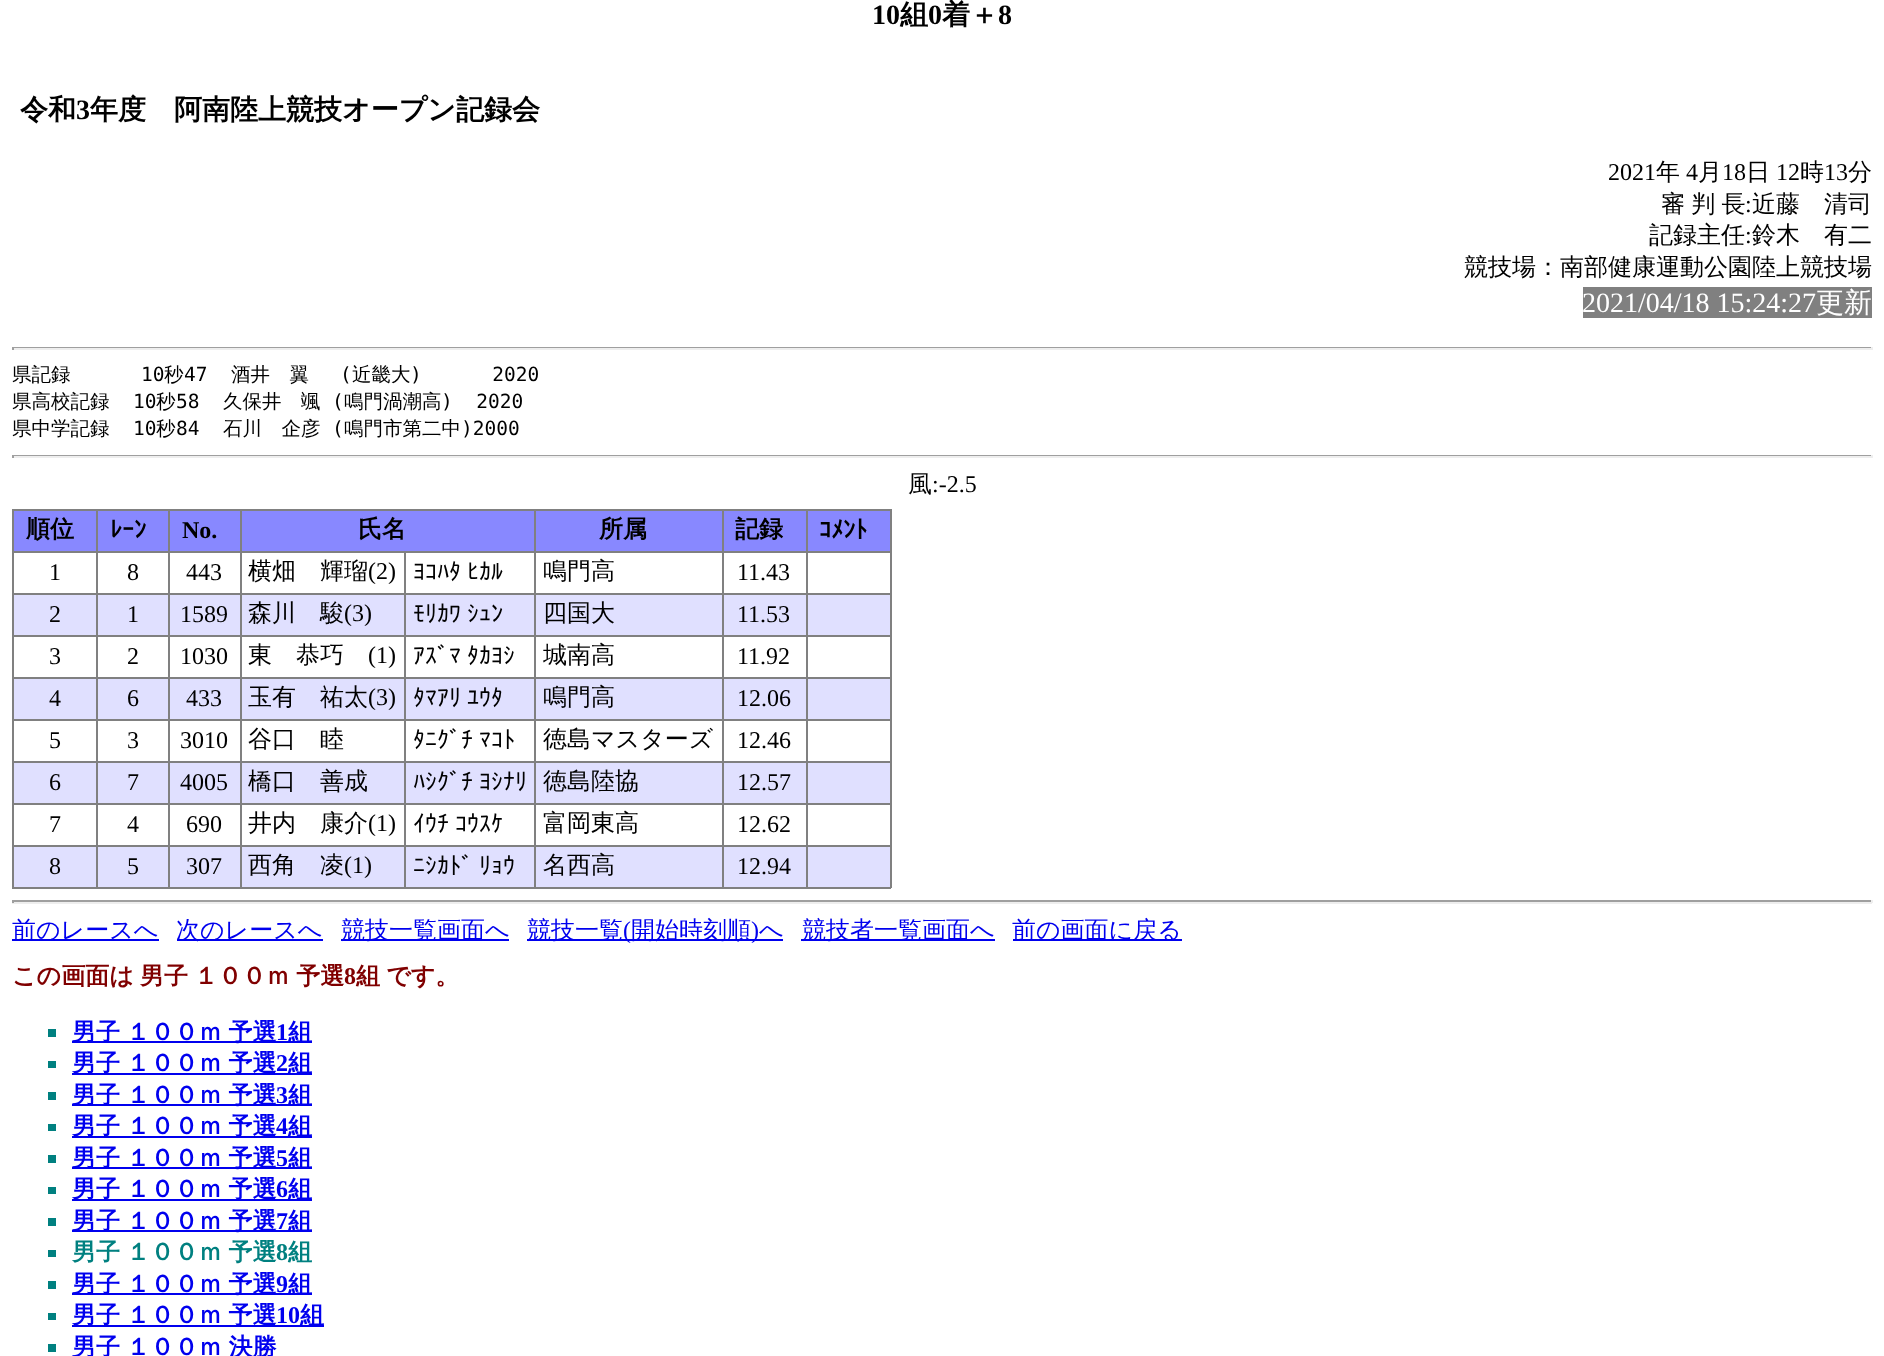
<svg xmlns="http://www.w3.org/2000/svg" width="1884" height="1356" viewBox="0 0 1884 1356">
  <rect width="100%" height="100%" fill="#fff"/>
  <path d="M1583 287h289v31H1583z" fill="#808080"/>
  <path d="M12 347h1860v1H12z" fill="#9f9f9f"/>
  <path d="M1871 347h2v3H1871z" fill="#eee"/>
  <path d="M12 348h1860v2H12z" fill="#eee"/>
  <path d="M12 347h2v3H12z" fill="#9f9f9f"/>
  <path d="M12 455h1860v1H12z" fill="#9f9f9f"/>
  <path d="M1871 455h2v3H1871z" fill="#eee"/>
  <path d="M12 456h1860v2H12z" fill="#eee"/>
  <path d="M12 455h2v3H12z" fill="#9f9f9f"/>
  <path d="M12 509h879v2H12z" fill="#808080"/>
  <path d="M12 509h2v379H12z" fill="#808080"/>
  <path d="M14 511h82v40H14z" fill="#88f"/>
  <path d="M14 595h876v40H14z" fill="#e0e0ff"/>
  <path d="M14 679h876v40H14z" fill="#e0e0ff"/>
  <path d="M14 763h876v40H14z" fill="#e0e0ff"/>
  <path d="M14 847h876v40H14z" fill="#e0e0ff"/>
  <path d="M890 509h2v379H890z" fill="#808080"/>
  <path d="M806 887h85v2H806z" fill="#808080"/>
  <path d="M806 845h2v43H806z" fill="#808080"/>
  <path d="M806 845h85v2H806z" fill="#808080"/>
  <path d="M806 803h2v43H806z" fill="#808080"/>
  <path d="M806 803h85v2H806z" fill="#808080"/>
  <path d="M806 761h2v43H806z" fill="#808080"/>
  <path d="M806 761h85v2H806z" fill="#808080"/>
  <path d="M806 719h2v43H806z" fill="#808080"/>
  <path d="M806 719h85v2H806z" fill="#808080"/>
  <path d="M806 677h2v43H806z" fill="#808080"/>
  <path d="M806 677h85v2H806z" fill="#808080"/>
  <path d="M806 635h2v43H806z" fill="#808080"/>
  <path d="M806 635h85v2H806z" fill="#808080"/>
  <path d="M806 593h2v43H806z" fill="#808080"/>
  <path d="M806 593h85v2H806z" fill="#808080"/>
  <path d="M806 551h2v43H806z" fill="#808080"/>
  <path d="M806 551h85v2H806z" fill="#808080"/>
  <path d="M806 509h2v43H806z" fill="#808080"/>
  <path d="M722 887h85v2H722z" fill="#808080"/>
  <path d="M722 845h2v43H722z" fill="#808080"/>
  <path d="M722 845h85v2H722z" fill="#808080"/>
  <path d="M722 803h2v43H722z" fill="#808080"/>
  <path d="M722 803h85v2H722z" fill="#808080"/>
  <path d="M722 761h2v43H722z" fill="#808080"/>
  <path d="M722 761h85v2H722z" fill="#808080"/>
  <path d="M722 719h2v43H722z" fill="#808080"/>
  <path d="M722 719h85v2H722z" fill="#808080"/>
  <path d="M722 677h2v43H722z" fill="#808080"/>
  <path d="M722 677h85v2H722z" fill="#808080"/>
  <path d="M722 635h2v43H722z" fill="#808080"/>
  <path d="M722 635h85v2H722z" fill="#808080"/>
  <path d="M722 593h2v43H722z" fill="#808080"/>
  <path d="M722 593h85v2H722z" fill="#808080"/>
  <path d="M722 551h2v43H722z" fill="#808080"/>
  <path d="M722 551h85v2H722z" fill="#808080"/>
  <path d="M722 509h2v43H722z" fill="#808080"/>
  <path d="M534 887h189v2H534z" fill="#808080"/>
  <path d="M534 845h2v43H534z" fill="#808080"/>
  <path d="M534 845h189v2H534z" fill="#808080"/>
  <path d="M534 803h2v43H534z" fill="#808080"/>
  <path d="M534 803h189v2H534z" fill="#808080"/>
  <path d="M534 761h2v43H534z" fill="#808080"/>
  <path d="M534 761h189v2H534z" fill="#808080"/>
  <path d="M534 719h2v43H534z" fill="#808080"/>
  <path d="M534 719h189v2H534z" fill="#808080"/>
  <path d="M534 677h2v43H534z" fill="#808080"/>
  <path d="M534 677h189v2H534z" fill="#808080"/>
  <path d="M534 635h2v43H534z" fill="#808080"/>
  <path d="M534 635h189v2H534z" fill="#808080"/>
  <path d="M534 593h2v43H534z" fill="#808080"/>
  <path d="M534 593h189v2H534z" fill="#808080"/>
  <path d="M534 551h2v43H534z" fill="#808080"/>
  <path d="M534 551h189v2H534z" fill="#808080"/>
  <path d="M534 509h2v43H534z" fill="#808080"/>
  <path d="M404 887h132v2H404z" fill="#808080"/>
  <path d="M404 845h2v43H404z" fill="#808080"/>
  <path d="M404 845h132v2H404z" fill="#808080"/>
  <path d="M404 803h2v43H404z" fill="#808080"/>
  <path d="M404 803h132v2H404z" fill="#808080"/>
  <path d="M404 761h2v43H404z" fill="#808080"/>
  <path d="M404 761h132v2H404z" fill="#808080"/>
  <path d="M404 719h2v43H404z" fill="#808080"/>
  <path d="M404 719h132v2H404z" fill="#808080"/>
  <path d="M404 677h2v43H404z" fill="#808080"/>
  <path d="M404 677h132v2H404z" fill="#808080"/>
  <path d="M404 635h2v43H404z" fill="#808080"/>
  <path d="M404 635h132v2H404z" fill="#808080"/>
  <path d="M404 593h2v43H404z" fill="#808080"/>
  <path d="M404 593h132v2H404z" fill="#808080"/>
  <path d="M404 551h2v43H404z" fill="#808080"/>
  <path d="M240 887h165v2H240z" fill="#808080"/>
  <path d="M240 845h2v43H240z" fill="#808080"/>
  <path d="M240 845h165v2H240z" fill="#808080"/>
  <path d="M240 803h2v43H240z" fill="#808080"/>
  <path d="M240 803h165v2H240z" fill="#808080"/>
  <path d="M240 761h2v43H240z" fill="#808080"/>
  <path d="M240 761h165v2H240z" fill="#808080"/>
  <path d="M240 719h2v43H240z" fill="#808080"/>
  <path d="M240 719h165v2H240z" fill="#808080"/>
  <path d="M240 677h2v43H240z" fill="#808080"/>
  <path d="M240 677h165v2H240z" fill="#808080"/>
  <path d="M240 635h2v43H240z" fill="#808080"/>
  <path d="M240 635h165v2H240z" fill="#808080"/>
  <path d="M240 593h2v43H240z" fill="#808080"/>
  <path d="M240 593h165v2H240z" fill="#808080"/>
  <path d="M240 551h2v43H240z" fill="#808080"/>
  <path d="M240 551h296v2H240z" fill="#808080"/>
  <path d="M240 509h2v43H240z" fill="#808080"/>
  <path d="M168 887h74v2H168z" fill="#808080"/>
  <path d="M168 845h2v43H168z" fill="#808080"/>
  <path d="M168 845h74v2H168z" fill="#808080"/>
  <path d="M168 803h2v43H168z" fill="#808080"/>
  <path d="M168 803h74v2H168z" fill="#808080"/>
  <path d="M168 761h2v43H168z" fill="#808080"/>
  <path d="M168 761h74v2H168z" fill="#808080"/>
  <path d="M168 719h2v43H168z" fill="#808080"/>
  <path d="M168 719h74v2H168z" fill="#808080"/>
  <path d="M168 677h2v43H168z" fill="#808080"/>
  <path d="M168 677h74v2H168z" fill="#808080"/>
  <path d="M168 635h2v43H168z" fill="#808080"/>
  <path d="M168 635h74v2H168z" fill="#808080"/>
  <path d="M168 593h2v43H168z" fill="#808080"/>
  <path d="M168 593h74v2H168z" fill="#808080"/>
  <path d="M168 551h2v43H168z" fill="#808080"/>
  <path d="M168 551h74v2H168z" fill="#808080"/>
  <path d="M168 509h2v43H168z" fill="#808080"/>
  <path d="M96 887h74v2H96z" fill="#808080"/>
  <path d="M96 845h2v43H96z" fill="#808080"/>
  <path d="M96 845h74v2H96z" fill="#808080"/>
  <path d="M96 803h2v43H96z" fill="#808080"/>
  <path d="M96 803h74v2H96z" fill="#808080"/>
  <path d="M96 761h2v43H96z" fill="#808080"/>
  <path d="M96 761h74v2H96z" fill="#808080"/>
  <path d="M96 719h2v43H96z" fill="#808080"/>
  <path d="M96 719h74v2H96z" fill="#808080"/>
  <path d="M96 677h2v43H96z" fill="#808080"/>
  <path d="M96 677h74v2H96z" fill="#808080"/>
  <path d="M96 635h2v43H96z" fill="#808080"/>
  <path d="M96 635h74v2H96z" fill="#808080"/>
  <path d="M96 593h2v43H96z" fill="#808080"/>
  <path d="M96 593h74v2H96z" fill="#808080"/>
  <path d="M96 551h2v43H96z" fill="#808080"/>
  <path d="M96 551h74v2H96z" fill="#808080"/>
  <path d="M96 509h2v43H96z" fill="#808080"/>
  <path d="M12 551h86v2H12z" fill="#808080"/>
  <path d="M98 511h70v40H98z" fill="#88f"/>
  <path d="M170 511h70v40H170z" fill="#88f"/>
  <path d="M242 511h292v40H242z" fill="#88f"/>
  <path d="M536 511h186v40H536z" fill="#88f"/>
  <path d="M724 511h82v40H724z" fill="#88f"/>
  <path d="M808 511h82v40H808z" fill="#88f"/>
  <path d="M12 593h86v2H12z" fill="#808080"/>
  <path d="M12 635h86v2H12z" fill="#808080"/>
  <path d="M12 677h86v2H12z" fill="#808080"/>
  <path d="M12 719h86v2H12z" fill="#808080"/>
  <path d="M12 761h86v2H12z" fill="#808080"/>
  <path d="M12 803h86v2H12z" fill="#808080"/>
  <path d="M12 845h86v2H12z" fill="#808080"/>
  <path d="M12 887h86v2H12z" fill="#808080"/>
  <path d="M12 900h1860v2H12z" fill="#9f9f9f"/>
  <path d="M1871 900h2v3H1871z" fill="#eee"/>
  <path d="M12 902h1860v2H12z" fill="#eee"/>
  <path d="M12 900h2v3H12z" fill="#9f9f9f"/>
  <path d="M12 939h147v2H12z" fill="#00e"/>
  <path d="M177 939h146v2H177z" fill="#00e"/>
  <path d="M341 939h168v2H341z" fill="#00e"/>
  <path d="M527 939h256v2H527z" fill="#00e"/>
  <path d="M801 939h194v2H801z" fill="#00e"/>
  <path d="M1013 939h169v2H1013z" fill="#00e"/>
  <path d="M48 1029h8v8H48z" fill="#008080"/>
  <path d="M72 1041h240v2H72z" fill="#00e"/>
  <path d="M48 1061h8v7H48z" fill="#008080"/>
  <path d="M72 1073h240v2H72z" fill="#00e"/>
  <path d="M48 1092h8v8H48z" fill="#008080"/>
  <path d="M72 1104h240v2H72z" fill="#00e"/>
  <path d="M48 1124h8v7H48z" fill="#008080"/>
  <path d="M72 1136h240v2H72z" fill="#00e"/>
  <path d="M48 1155h8v8H48z" fill="#008080"/>
  <path d="M72 1167h240v2H72z" fill="#00e"/>
  <path d="M48 1187h8v7H48z" fill="#008080"/>
  <path d="M72 1199h240v2H72z" fill="#00e"/>
  <path d="M48 1218h8v8H48z" fill="#008080"/>
  <path d="M72 1230h240v2H72z" fill="#00e"/>
  <path d="M48 1250h8v7H48z" fill="#008080"/>
  <path d="M48 1281h8v8H48z" fill="#008080"/>
  <path d="M72 1293h240v2H72z" fill="#00e"/>
  <path d="M48 1313h8v7H48z" fill="#008080"/>
  <path d="M72 1325h252v2H72z" fill="#00e"/>
  <path d="M48 1344h8v8H48z" fill="#008080"/>
  <text x="872" y="24" font-family="Liberation Serif" font-size="28" font-weight="bold" fill="#000">10</text>
  <text x="900" y="24" font-family="WenQuanYi Zen Hei" font-size="28" font-weight="bold" fill="#000">組</text>
  <text x="928" y="24" font-family="Liberation Serif" font-size="28" font-weight="bold" fill="#000">0</text>
  <text x="942" y="24" font-family="WenQuanYi Zen Hei" font-size="28" font-weight="bold" fill="#000">着＋</text>
  <text x="998" y="24" font-family="Liberation Serif" font-size="28" font-weight="bold" fill="#000">8</text>
  <text x="20" y="119" font-family="WenQuanYi Zen Hei" font-size="28" font-weight="bold" fill="#000">令和</text>
  <text x="76" y="119" font-family="Liberation Serif" font-size="28" font-weight="bold" fill="#000">3</text>
  <text x="90" y="119" font-family="WenQuanYi Zen Hei" font-size="28" font-weight="bold" fill="#000">年度　阿南陸上競技オープン記録会</text>
  <text x="1608" y="180" font-family="Liberation Serif" font-size="24" fill="#000">2021</text>
  <text x="1656" y="180" font-family="WenQuanYi Zen Hei" font-size="24" font-weight="500" fill="#000">年</text>
  <text x="1686" y="180" font-family="Liberation Serif" font-size="24" fill="#000">4</text>
  <text x="1698" y="180" font-family="WenQuanYi Zen Hei" font-size="24" font-weight="500" fill="#000">月</text>
  <text x="1722" y="180" font-family="Liberation Serif" font-size="24" fill="#000">18</text>
  <text x="1746" y="180" font-family="WenQuanYi Zen Hei" font-size="24" font-weight="500" fill="#000">日</text>
  <text x="1776" y="180" font-family="Liberation Serif" font-size="24" fill="#000">12</text>
  <text x="1800" y="180" font-family="WenQuanYi Zen Hei" font-size="24" font-weight="500" fill="#000">時</text>
  <text x="1824" y="180" font-family="Liberation Serif" font-size="24" fill="#000">13</text>
  <g font-family="WenQuanYi Zen Hei" font-size="24" font-weight="500" fill="#000">
    <text x="1848" y="180">分</text>
    <text x="1661" y="212" word-spacing="-1">審 判 長</text>
  </g>
  <text x="1745" y="212" font-family="Liberation Serif" font-size="24" fill="#000">:</text>
  <g font-family="WenQuanYi Zen Hei" font-size="24" font-weight="500" fill="#000">
    <text x="1752" y="212">近藤　清司</text>
    <text x="1649" y="243">記録主任</text>
  </g>
  <text x="1745" y="243" font-family="Liberation Serif" font-size="24" fill="#000">:</text>
  <g font-family="WenQuanYi Zen Hei" font-size="24" font-weight="500" fill="#000">
    <text x="1752" y="243">鈴木　有二</text>
    <text x="1464" y="275">競技場：南部健康運動公園陸上競技場</text>
  </g>
  <text x="1582" y="312" font-family="Liberation Serif" font-size="28" fill="#fff">2021/04/18 15:24:27</text>
  <text x="1816" y="312" font-family="WenQuanYi Zen Hei" font-size="28" font-weight="500" fill="#fff">更新</text>
  <text x="12" y="381" font-family="WenQuanYi Zen Hei" font-size="19.5" font-weight="500" fill="#000">県記録</text>
  <text x="141" y="381" font-family="DejaVu Sans Mono" font-size="19.5" fill="#000">10</text>
  <text x="164" y="381" font-family="WenQuanYi Zen Hei" font-size="19.5" font-weight="500" fill="#000">秒</text>
  <text x="184" y="381" font-family="DejaVu Sans Mono" font-size="19.5" fill="#000">47</text>
  <text x="231" y="381" font-family="WenQuanYi Zen Hei" font-size="19.5" font-weight="500" fill="#000">酒井　翼</text>
  <text x="340" y="381" font-family="DejaVu Sans Mono" font-size="19.5" fill="#000">(</text>
  <text x="352" y="381" font-family="WenQuanYi Zen Hei" font-size="19.5" font-weight="500" fill="#000">近畿大</text>
  <text x="410" y="381" font-family="DejaVu Sans Mono" font-size="19.5" fill="#000" xml:space="preserve">)      2020</text>
  <text x="12" y="408" font-family="WenQuanYi Zen Hei" font-size="19.5" font-weight="500" fill="#000">県高校記録</text>
  <text x="133" y="408" font-family="DejaVu Sans Mono" font-size="19.5" fill="#000">10</text>
  <text x="156" y="408" font-family="WenQuanYi Zen Hei" font-size="19.5" font-weight="500" fill="#000">秒</text>
  <text x="176" y="408" font-family="DejaVu Sans Mono" font-size="19.5" fill="#000">58</text>
  <text x="223" y="408" font-family="WenQuanYi Zen Hei" font-size="19.5" font-weight="500" fill="#000">久保井　颯</text>
  <text x="332" y="408" font-family="DejaVu Sans Mono" font-size="19.5" fill="#000">(</text>
  <text x="344" y="408" font-family="WenQuanYi Zen Hei" font-size="19.5" font-weight="500" fill="#000">鳴門渦潮高</text>
  <text x="441" y="408" font-family="DejaVu Sans Mono" font-size="19.5" fill="#000" xml:space="preserve">)  2020</text>
  <text x="12" y="435" font-family="WenQuanYi Zen Hei" font-size="19.5" font-weight="500" fill="#000">県中学記録</text>
  <text x="133" y="435" font-family="DejaVu Sans Mono" font-size="19.5" fill="#000">10</text>
  <text x="156" y="435" font-family="WenQuanYi Zen Hei" font-size="19.5" font-weight="500" fill="#000">秒</text>
  <text x="176" y="435" font-family="DejaVu Sans Mono" font-size="19.5" fill="#000">84</text>
  <text x="223" y="435" font-family="WenQuanYi Zen Hei" font-size="19.5" font-weight="500" fill="#000">石川　企彦</text>
  <text x="332" y="435" font-family="DejaVu Sans Mono" font-size="19.5" fill="#000">(</text>
  <text x="344" y="435" font-family="WenQuanYi Zen Hei" font-size="19.5" font-weight="500" fill="#000">鳴門市第二中</text>
  <text x="461" y="435" font-family="DejaVu Sans Mono" font-size="19.5" fill="#000">)2000</text>
  <text x="908" y="492" font-family="WenQuanYi Zen Hei" font-size="24" font-weight="500" fill="#000">風</text>
  <text x="932" y="492" font-family="Liberation Serif" font-size="24" fill="#000">:-2.5</text>
  <text x="26" y="537" font-family="WenQuanYi Zen Hei" font-size="24" font-weight="bold" fill="#000">順位</text>
  <text x="110" y="538" font-family="IPAGothic" font-size="24" font-weight="bold" fill="#000">ﾚｰﾝ</text>
  <text x="182" y="538" font-family="Liberation Serif" font-size="24" font-weight="bold" fill="#000">No.</text>
  <g font-family="WenQuanYi Zen Hei" font-size="24" font-weight="bold" fill="#000">
    <text x="358" y="537">氏名</text>
    <text x="599" y="537">所属</text>
    <text x="735" y="537">記録</text>
  </g>
  <text x="819" y="538" font-family="IPAGothic" font-size="24" font-weight="bold" fill="#000">ｺﾒﾝﾄ</text>
  <g font-family="Liberation Serif" font-size="24" fill="#000">
    <text x="49" y="580">1</text>
    <text x="127" y="580">8</text>
    <text x="186" y="580">443</text>
  </g>
  <text x="248" y="579" font-family="WenQuanYi Zen Hei" font-size="24" font-weight="500" fill="#000">横畑　輝瑠</text>
  <text x="368" y="579" font-family="Liberation Serif" font-size="24" fill="#000">(2)</text>
  <text x="413" y="580" word-spacing="-6" font-family="IPAGothic" font-size="24" fill="#000">ﾖｺﾊﾀ ﾋｶﾙ</text>
  <text x="543" y="579" font-family="WenQuanYi Zen Hei" font-size="24" font-weight="500" fill="#000">鳴門高</text>
  <g font-family="Liberation Serif" font-size="24" fill="#000">
    <text x="737" y="580">11.43</text>
    <text x="49" y="622">2</text>
    <text x="127" y="622">1</text>
    <text x="180" y="622">1589</text>
  </g>
  <text x="248" y="621" font-family="WenQuanYi Zen Hei" font-size="24" font-weight="500" fill="#000">森川　駿</text>
  <text x="344" y="621" font-family="Liberation Serif" font-size="24" fill="#000">(3)</text>
  <text x="413" y="622" word-spacing="-6" font-family="IPAGothic" font-size="24" fill="#000">ﾓﾘｶﾜ ｼｭﾝ</text>
  <text x="543" y="621" font-family="WenQuanYi Zen Hei" font-size="24" font-weight="500" fill="#000">四国大</text>
  <g font-family="Liberation Serif" font-size="24" fill="#000">
    <text x="737" y="622">11.53</text>
    <text x="49" y="664">3</text>
    <text x="127" y="664">2</text>
    <text x="180" y="664">1030</text>
  </g>
  <text x="248" y="663" font-family="WenQuanYi Zen Hei" font-size="24" font-weight="500" fill="#000">東　恭巧</text>
  <text x="368" y="663" font-family="Liberation Serif" font-size="24" fill="#000">(1)</text>
  <text x="413" y="664" word-spacing="-6" font-family="IPAGothic" font-size="24" fill="#000">ｱｽﾞﾏ ﾀｶﾖｼ</text>
  <text x="543" y="663" font-family="WenQuanYi Zen Hei" font-size="24" font-weight="500" fill="#000">城南高</text>
  <g font-family="Liberation Serif" font-size="24" fill="#000">
    <text x="737" y="664">11.92</text>
    <text x="49" y="706">4</text>
    <text x="127" y="706">6</text>
    <text x="186" y="706">433</text>
  </g>
  <text x="248" y="705" font-family="WenQuanYi Zen Hei" font-size="24" font-weight="500" fill="#000">玉有　祐太</text>
  <text x="368" y="705" font-family="Liberation Serif" font-size="24" fill="#000">(3)</text>
  <text x="413" y="706" word-spacing="-6" font-family="IPAGothic" font-size="24" fill="#000">ﾀﾏｱﾘ ﾕｳﾀ</text>
  <text x="543" y="705" font-family="WenQuanYi Zen Hei" font-size="24" font-weight="500" fill="#000">鳴門高</text>
  <g font-family="Liberation Serif" font-size="24" fill="#000">
    <text x="737" y="706">12.06</text>
    <text x="49" y="748">5</text>
    <text x="127" y="748">3</text>
    <text x="180" y="748">3010</text>
  </g>
  <text x="248" y="747" font-family="WenQuanYi Zen Hei" font-size="24" font-weight="500" fill="#000">谷口　睦</text>
  <text x="413" y="748" word-spacing="-6" font-family="IPAGothic" font-size="24" fill="#000">ﾀﾆｸﾞﾁ ﾏｺﾄ</text>
  <text x="543" y="747" font-family="WenQuanYi Zen Hei" font-size="24" font-weight="500" fill="#000">徳島マスターズ</text>
  <g font-family="Liberation Serif" font-size="24" fill="#000">
    <text x="737" y="748">12.46</text>
    <text x="49" y="790">6</text>
    <text x="127" y="790">7</text>
    <text x="180" y="790">4005</text>
  </g>
  <text x="248" y="789" font-family="WenQuanYi Zen Hei" font-size="24" font-weight="500" fill="#000">橋口　善成</text>
  <text x="413" y="790" word-spacing="-6" font-family="IPAGothic" font-size="24" fill="#000">ﾊｼｸﾞﾁ ﾖｼﾅﾘ</text>
  <text x="543" y="789" font-family="WenQuanYi Zen Hei" font-size="24" font-weight="500" fill="#000">徳島陸協</text>
  <g font-family="Liberation Serif" font-size="24" fill="#000">
    <text x="737" y="790">12.57</text>
    <text x="49" y="832">7</text>
    <text x="127" y="832">4</text>
    <text x="186" y="832">690</text>
  </g>
  <text x="248" y="831" font-family="WenQuanYi Zen Hei" font-size="24" font-weight="500" fill="#000">井内　康介</text>
  <text x="368" y="831" font-family="Liberation Serif" font-size="24" fill="#000">(1)</text>
  <text x="413" y="832" word-spacing="-6" font-family="IPAGothic" font-size="24" fill="#000">ｲｳﾁ ｺｳｽｹ</text>
  <text x="543" y="831" font-family="WenQuanYi Zen Hei" font-size="24" font-weight="500" fill="#000">富岡東高</text>
  <g font-family="Liberation Serif" font-size="24" fill="#000">
    <text x="737" y="832">12.62</text>
    <text x="49" y="874">8</text>
    <text x="127" y="874">5</text>
    <text x="186" y="874">307</text>
  </g>
  <text x="248" y="873" font-family="WenQuanYi Zen Hei" font-size="24" font-weight="500" fill="#000">西角　凌</text>
  <text x="344" y="873" font-family="Liberation Serif" font-size="24" fill="#000">(1)</text>
  <text x="413" y="874" word-spacing="-6" font-family="IPAGothic" font-size="24" fill="#000">ﾆｼｶﾄﾞ ﾘｮｳ</text>
  <text x="543" y="873" font-family="WenQuanYi Zen Hei" font-size="24" font-weight="500" fill="#000">名西高</text>
  <text x="737" y="874" font-family="Liberation Serif" font-size="24" fill="#000">12.94</text>
  <g font-family="WenQuanYi Zen Hei" font-size="24" font-weight="500" fill="#00e">
    <text x="12" y="938">前のレースへ</text>
    <text x="176" y="938">次のレースへ</text>
    <text x="341" y="938">競技一覧画面へ</text>
    <text x="527" y="938">競技一覧</text>
  </g>
  <text x="623" y="938" font-family="Liberation Serif" font-size="24" fill="#00e">(</text>
  <text x="631" y="938" font-family="WenQuanYi Zen Hei" font-size="24" font-weight="500" fill="#00e">開始時刻順</text>
  <text x="751" y="938" font-family="Liberation Serif" font-size="24" fill="#00e">)</text>
  <g font-family="WenQuanYi Zen Hei" font-size="24" font-weight="500" fill="#00e">
    <text x="759" y="938">へ</text>
    <text x="802" y="938">競技者一覧画面へ</text>
    <text x="1012" y="938">前の画面に戻る</text>
  </g>
  <text x="12" y="984" word-spacing="-1" font-family="WenQuanYi Zen Hei" font-size="24" font-weight="bold" fill="#800000">この画面は 男子 １００ｍ 予選</text>
  <text x="344" y="984" font-family="Liberation Serif" font-size="24" font-weight="bold" fill="#800000">8</text>
  <text x="356" y="984" word-spacing="-1" font-family="WenQuanYi Zen Hei" font-size="24" font-weight="bold" fill="#800000">組 です。</text>
  <text x="72" y="1040" word-spacing="-1" font-family="WenQuanYi Zen Hei" font-size="24" font-weight="bold" fill="#00e">男子 １００ｍ 予選</text>
  <text x="276" y="1040" font-family="Liberation Serif" font-size="24" font-weight="bold" fill="#00e">1</text>
  <g font-family="WenQuanYi Zen Hei" font-size="24" font-weight="bold" fill="#00e">
    <text x="288" y="1040">組</text>
    <text x="72" y="1071" word-spacing="-1">男子 １００ｍ 予選</text>
  </g>
  <text x="276" y="1071" font-family="Liberation Serif" font-size="24" font-weight="bold" fill="#00e">2</text>
  <g font-family="WenQuanYi Zen Hei" font-size="24" font-weight="bold" fill="#00e">
    <text x="288" y="1071">組</text>
    <text x="72" y="1103" word-spacing="-1">男子 １００ｍ 予選</text>
  </g>
  <text x="276" y="1103" font-family="Liberation Serif" font-size="24" font-weight="bold" fill="#00e">3</text>
  <g font-family="WenQuanYi Zen Hei" font-size="24" font-weight="bold" fill="#00e">
    <text x="288" y="1103">組</text>
    <text x="72" y="1134" word-spacing="-1">男子 １００ｍ 予選</text>
  </g>
  <text x="276" y="1134" font-family="Liberation Serif" font-size="24" font-weight="bold" fill="#00e">4</text>
  <g font-family="WenQuanYi Zen Hei" font-size="24" font-weight="bold" fill="#00e">
    <text x="288" y="1134">組</text>
    <text x="72" y="1166" word-spacing="-1">男子 １００ｍ 予選</text>
  </g>
  <text x="276" y="1166" font-family="Liberation Serif" font-size="24" font-weight="bold" fill="#00e">5</text>
  <g font-family="WenQuanYi Zen Hei" font-size="24" font-weight="bold" fill="#00e">
    <text x="288" y="1166">組</text>
    <text x="72" y="1197" word-spacing="-1">男子 １００ｍ 予選</text>
  </g>
  <text x="276" y="1197" font-family="Liberation Serif" font-size="24" font-weight="bold" fill="#00e">6</text>
  <g font-family="WenQuanYi Zen Hei" font-size="24" font-weight="bold" fill="#00e">
    <text x="288" y="1197">組</text>
    <text x="72" y="1229" word-spacing="-1">男子 １００ｍ 予選</text>
  </g>
  <text x="276" y="1229" font-family="Liberation Serif" font-size="24" font-weight="bold" fill="#00e">7</text>
  <text x="288" y="1229" font-family="WenQuanYi Zen Hei" font-size="24" font-weight="bold" fill="#00e">組</text>
  <text x="72" y="1260" word-spacing="-1" font-family="WenQuanYi Zen Hei" font-size="24" font-weight="bold" fill="#008080">男子 １００ｍ 予選</text>
  <text x="276" y="1260" font-family="Liberation Serif" font-size="24" font-weight="bold" fill="#008080">8</text>
  <text x="288" y="1260" font-family="WenQuanYi Zen Hei" font-size="24" font-weight="bold" fill="#008080">組</text>
  <text x="72" y="1292" word-spacing="-1" font-family="WenQuanYi Zen Hei" font-size="24" font-weight="bold" fill="#00e">男子 １００ｍ 予選</text>
  <text x="276" y="1292" font-family="Liberation Serif" font-size="24" font-weight="bold" fill="#00e">9</text>
  <g font-family="WenQuanYi Zen Hei" font-size="24" font-weight="bold" fill="#00e">
    <text x="288" y="1292">組</text>
    <text x="72" y="1323" word-spacing="-1">男子 １００ｍ 予選</text>
  </g>
  <text x="276" y="1323" font-family="Liberation Serif" font-size="24" font-weight="bold" fill="#00e">10</text>
  <g font-family="WenQuanYi Zen Hei" font-size="24" font-weight="bold" fill="#00e">
    <text x="300" y="1323">組</text>
    <text x="72" y="1355" word-spacing="-1">男子 １００ｍ 決勝</text>
  </g>
</svg>
